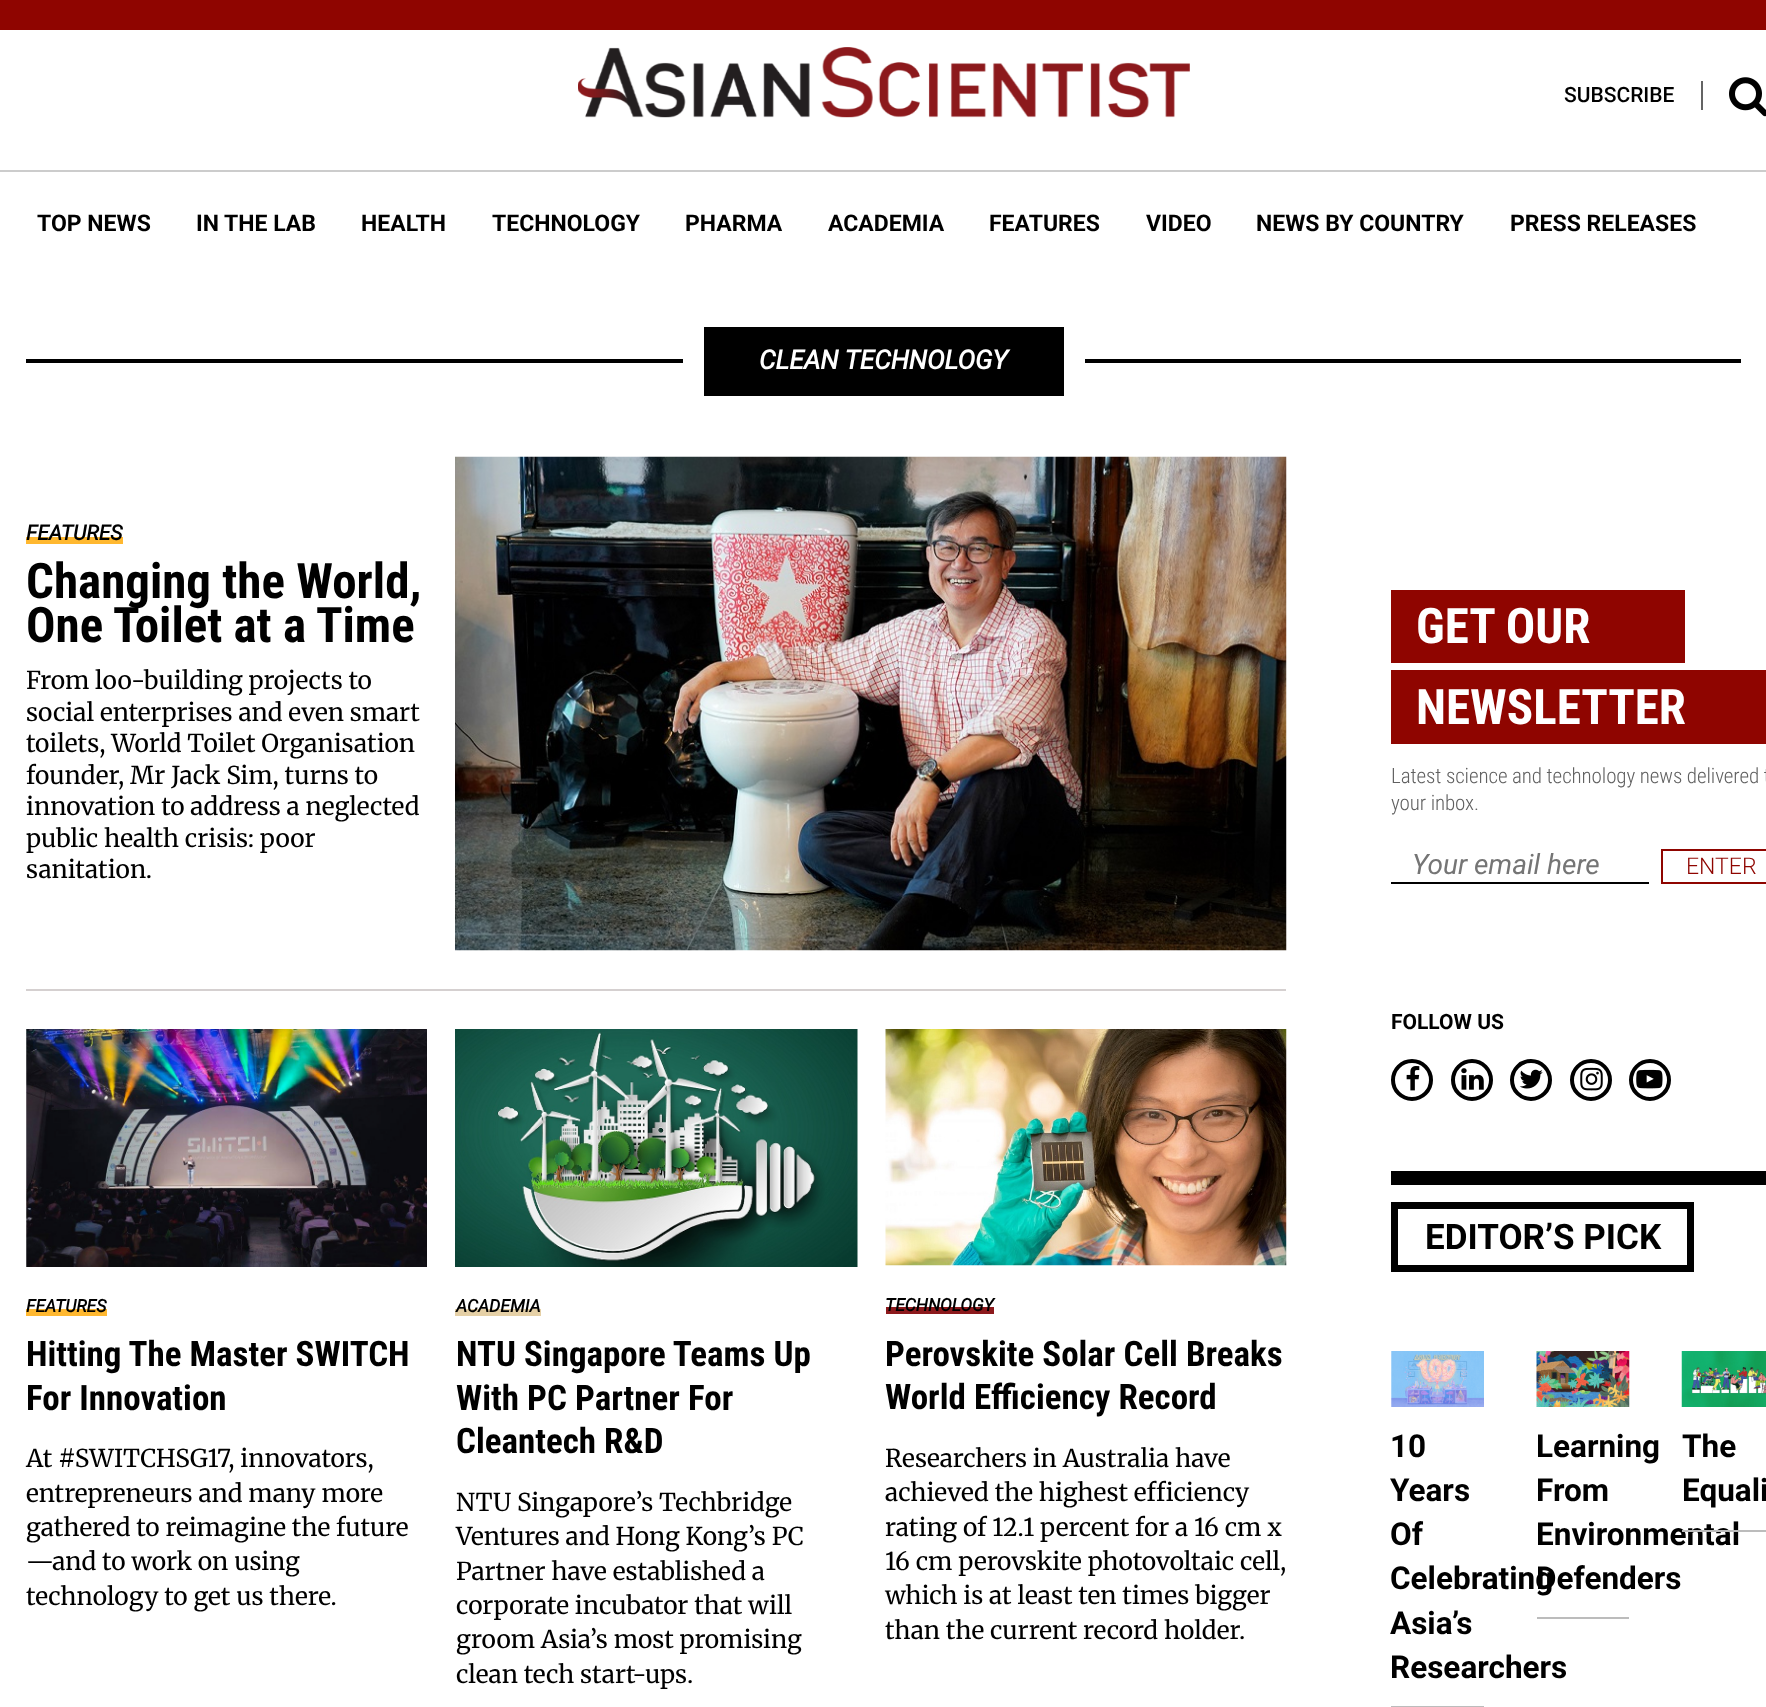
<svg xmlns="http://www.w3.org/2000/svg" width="1766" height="1707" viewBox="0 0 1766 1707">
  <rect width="100%" height="100%" fill="#fff"/>
  <path d="M0 0h1766v30H0z" fill="#8f0500"/>
  <path d="M0 170h1766v2H0z" fill="#ccc"/>
  <image x="578" y="47" width="612" height="71" href="img/1.png"/>
  <path d="M1701 81h2v29H1701z" fill="#646464"/>
  <image x="1729" y="77" width="37" height="40" href="img/2.png"/>
  <path d="M704 327h360v69H704z" fill="#000"/>
  <path d="M26 359h657v4H26z" fill="#000"/>
  <path d="M1085 359h656v4H1085z" fill="#000"/>
  <path d="M26 989h1260v2H26z" fill="#d5d0d0"/>
  <path d="M26 537h97v7H26z" fill="#ffb830"/>
  <image x="455" y="456" width="832" height="495" href="img/3.png"/>
  <image x="26" y="1029" width="401" height="238" href="img/4.png"/>
  <path d="M26 1309h81v7H26z" fill="#ffb830"/>
  <image x="455" y="1029" width="403" height="238" href="img/5.png"/>
  <path d="M455 1309h86v7H455z" fill="#e5d0a6"/>
  <image x="885" y="1029" width="402" height="237" href="img/6.png"/>
  <path d="M886 1307h108v7H886z" fill="#8c191c"/>
  <path d="M1391 590h294v73H1391z" fill="#8f0500"/>
  <path d="M1391 670h375v74H1391z" fill="#8f0500"/>
  <path d="M1391 882h258v2H1391z" fill="#000"/>
  <path d="M1662 850h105v33H1662z" fill="none" stroke="#8f0500" stroke-width="2"/>
  <circle cx="1412" cy="1080" r="19" fill="none" stroke="#000" stroke-width="4"/>
  <image x="1406" y="1066" width="14" height="25" href="img/7.png"/>
  <circle cx="1472" cy="1080" r="19" fill="none" stroke="#000" stroke-width="4"/>
  <image x="1461" y="1068" width="23" height="22" href="img/8.png"/>
  <circle cx="1531" cy="1080" r="19" fill="none" stroke="#000" stroke-width="4"/>
  <image x="1519" y="1069" width="24" height="20" href="img/9.png"/>
  <circle cx="1591" cy="1080" r="19" fill="none" stroke="#000" stroke-width="4"/>
  <image x="1580" y="1067" width="23" height="24" href="img/10.png"/>
  <circle cx="1650" cy="1080" r="19" fill="none" stroke="#000" stroke-width="4"/>
  <image x="1636" y="1069" width="27" height="20" href="img/11.png"/>
  <path d="M1391 1171h375v14H1391z" fill="#000"/>
  <path d="M1394.5 1205.5h296v63H1394.5z" fill="none" stroke="#000" stroke-width="7"/>
  <image x="1536" y="1351" width="94" height="56" href="img/12.png"/>
  <path d="M1537 1617h92v2H1537z" fill="#bcbcbc"/>
  <image x="1391" y="1351" width="93" height="56" href="img/13.png"/>
  <path d="M1391 1706h93v1H1391z" fill="#bcbcbc"/>
  <image x="1681" y="1351" width="85" height="56" href="img/14.png"/>
  <text x="1564" y="102" font-family="Roboto" font-size="21" font-weight="500" fill="#000">SUBSCRIBE</text>
  <g font-family="Roboto" font-size="23" font-weight="bold" fill="#000">
    <text x="37" y="231">TOP NEWS</text>
    <text x="196" y="231">IN THE LAB</text>
    <text x="361" y="231">HEALTH</text>
    <text x="492" y="231">TECHNOLOGY</text>
    <text x="685" y="231">PHARMA</text>
    <text x="828" y="231">ACADEMIA</text>
    <text x="989" y="231">FEATURES</text>
    <text x="1146" y="231">VIDEO</text>
    <text x="1256" y="231">NEWS BY COUNTRY</text>
    <text x="1510" y="231">PRESS RELEASES</text>
  </g>
  <text x="759" y="369" font-family="Roboto" font-size="26.25" font-weight="bold" font-style="italic" fill="#fff">CLEAN TECHNOLOGY</text>
  <text x="26" y="540" font-family="Roboto" font-size="21" font-weight="bold" font-style="italic" fill="#000">FEATURES</text>
  <g font-family="Roboto Condensed" font-size="49" font-weight="bold" fill="#000">
    <text x="26" y="598">Changing the World,</text>
    <text x="26" y="642">One Toilet at a Time</text>
  </g>
  <g font-family="Merriweather" font-size="24.5" fill="#000">
    <text x="26" y="689">From loo-building projects to</text>
    <text x="26" y="721">social enterprises and even smart</text>
    <text x="26" y="752">toilets, World Toilet Organisation</text>
    <text x="26" y="784">founder, Mr Jack Sim, turns to</text>
    <text x="26" y="815">innovation to address a neglected</text>
    <text x="26" y="847">public health crisis: poor</text>
    <text x="26" y="878">sanitation.</text>
  </g>
  <text x="26" y="1312" font-family="Roboto" font-size="17.5" font-weight="bold" font-style="italic" fill="#000">FEATURES</text>
  <g font-family="Roboto Condensed" font-size="35" font-weight="bold" fill="#000">
    <text x="26" y="1366">Hitting The Master SWITCH</text>
    <text x="26" y="1410">For Innovation</text>
  </g>
  <g font-family="Merriweather" font-size="24.5" fill="#000">
    <text x="26" y="1467">At #SWITCHSG17, innovators,</text>
    <text x="26" y="1502">entrepreneurs and many more</text>
    <text x="26" y="1536">gathered to reimagine the future</text>
    <text x="26" y="1570">—and to work on using</text>
    <text x="26" y="1605">technology to get us there.</text>
  </g>
  <text x="456" y="1312" font-family="Roboto" font-size="17.5" font-weight="bold" font-style="italic" fill="#000">ACADEMIA</text>
  <g font-family="Roboto Condensed" font-size="35" font-weight="bold" fill="#000">
    <text x="456" y="1366">NTU Singapore Teams Up</text>
    <text x="456" y="1410">With PC Partner For</text>
    <text x="456" y="1453">Cleantech R&amp;D</text>
  </g>
  <g font-family="Merriweather" font-size="24.5" fill="#000">
    <text x="456" y="1511">NTU Singapore’s Techbridge</text>
    <text x="456" y="1545">Ventures and Hong Kong’s PC</text>
    <text x="456" y="1580">Partner have established a</text>
    <text x="456" y="1614">corporate incubator that will</text>
    <text x="456" y="1648">groom Asia’s most promising</text>
    <text x="456" y="1683">clean tech start-ups.</text>
  </g>
  <text x="885" y="1311" font-family="Roboto" font-size="17.5" font-weight="bold" font-style="italic" fill="#000">TECHNOLOGY</text>
  <g font-family="Roboto Condensed" font-size="35" font-weight="bold" fill="#000">
    <text x="885" y="1366">Perovskite Solar Cell Breaks</text>
    <text x="885" y="1409">World Efficiency Record</text>
  </g>
  <g font-family="Merriweather" font-size="24.5" fill="#000">
    <text x="885" y="1467">Researchers in Australia have</text>
    <text x="885" y="1501">achieved the highest efficiency</text>
    <text x="885" y="1536">rating of 12.1 percent for a 16 cm x</text>
    <text x="885" y="1570">16 cm perovskite photovoltaic cell,</text>
    <text x="885" y="1604">which is at least ten times bigger</text>
    <text x="885" y="1639">than the current record holder.</text>
  </g>
  <g font-family="Roboto Condensed" font-size="49" font-weight="bold" fill="#fff">
    <text x="1416" y="643">GET OUR</text>
    <text x="1416" y="724">NEWSLETTER</text>
  </g>
  <g font-family="Roboto Condensed" font-size="21" font-weight="300" letter-spacing="-0.1" fill="#606060">
    <text x="1391" y="783">Latest science and technology news delivered t</text>
    <text x="1391" y="810">your inbox.</text>
  </g>
  <text x="1412" y="874" font-family="Roboto" font-size="28" font-style="italic" fill="#757575">Your email here</text>
  <text x="1686" y="874" font-family="Roboto" font-size="23" font-weight="300" fill="#8f0500">ENTER</text>
  <text x="1391" y="1029" font-family="Roboto" font-size="21" font-weight="bold" fill="#000">FOLLOW US</text>
  <text x="1425" y="1249" font-family="Roboto" font-size="35" font-weight="bold" fill="#000">EDITOR’S PICK</text>
  <g font-family="Roboto" font-size="31.5" font-weight="bold" fill="#000">
    <text x="1536" y="1457">Learning</text>
    <text x="1536" y="1501">From</text>
    <text x="1536" y="1545">Environmental</text>
    <text x="1390" y="1457">10</text>
    <text x="1390" y="1501">Years</text>
    <text x="1390" y="1545">Of</text>
    <text x="1390" y="1589">Celebrating</text>
    <text x="1536" y="1589">Defenders</text>
    <text x="1390" y="1634">Asia’s</text>
    <text x="1390" y="1678">Researchers</text>
  </g>
  <path d="M1682 1530h84v2H1682z" fill="#bcbcbc"/>
  <g font-family="Roboto" font-size="31.5" font-weight="bold" fill="#000">
    <text x="1682" y="1457">The</text>
    <text x="1682" y="1501">Equali</text>
  </g>
</svg>
